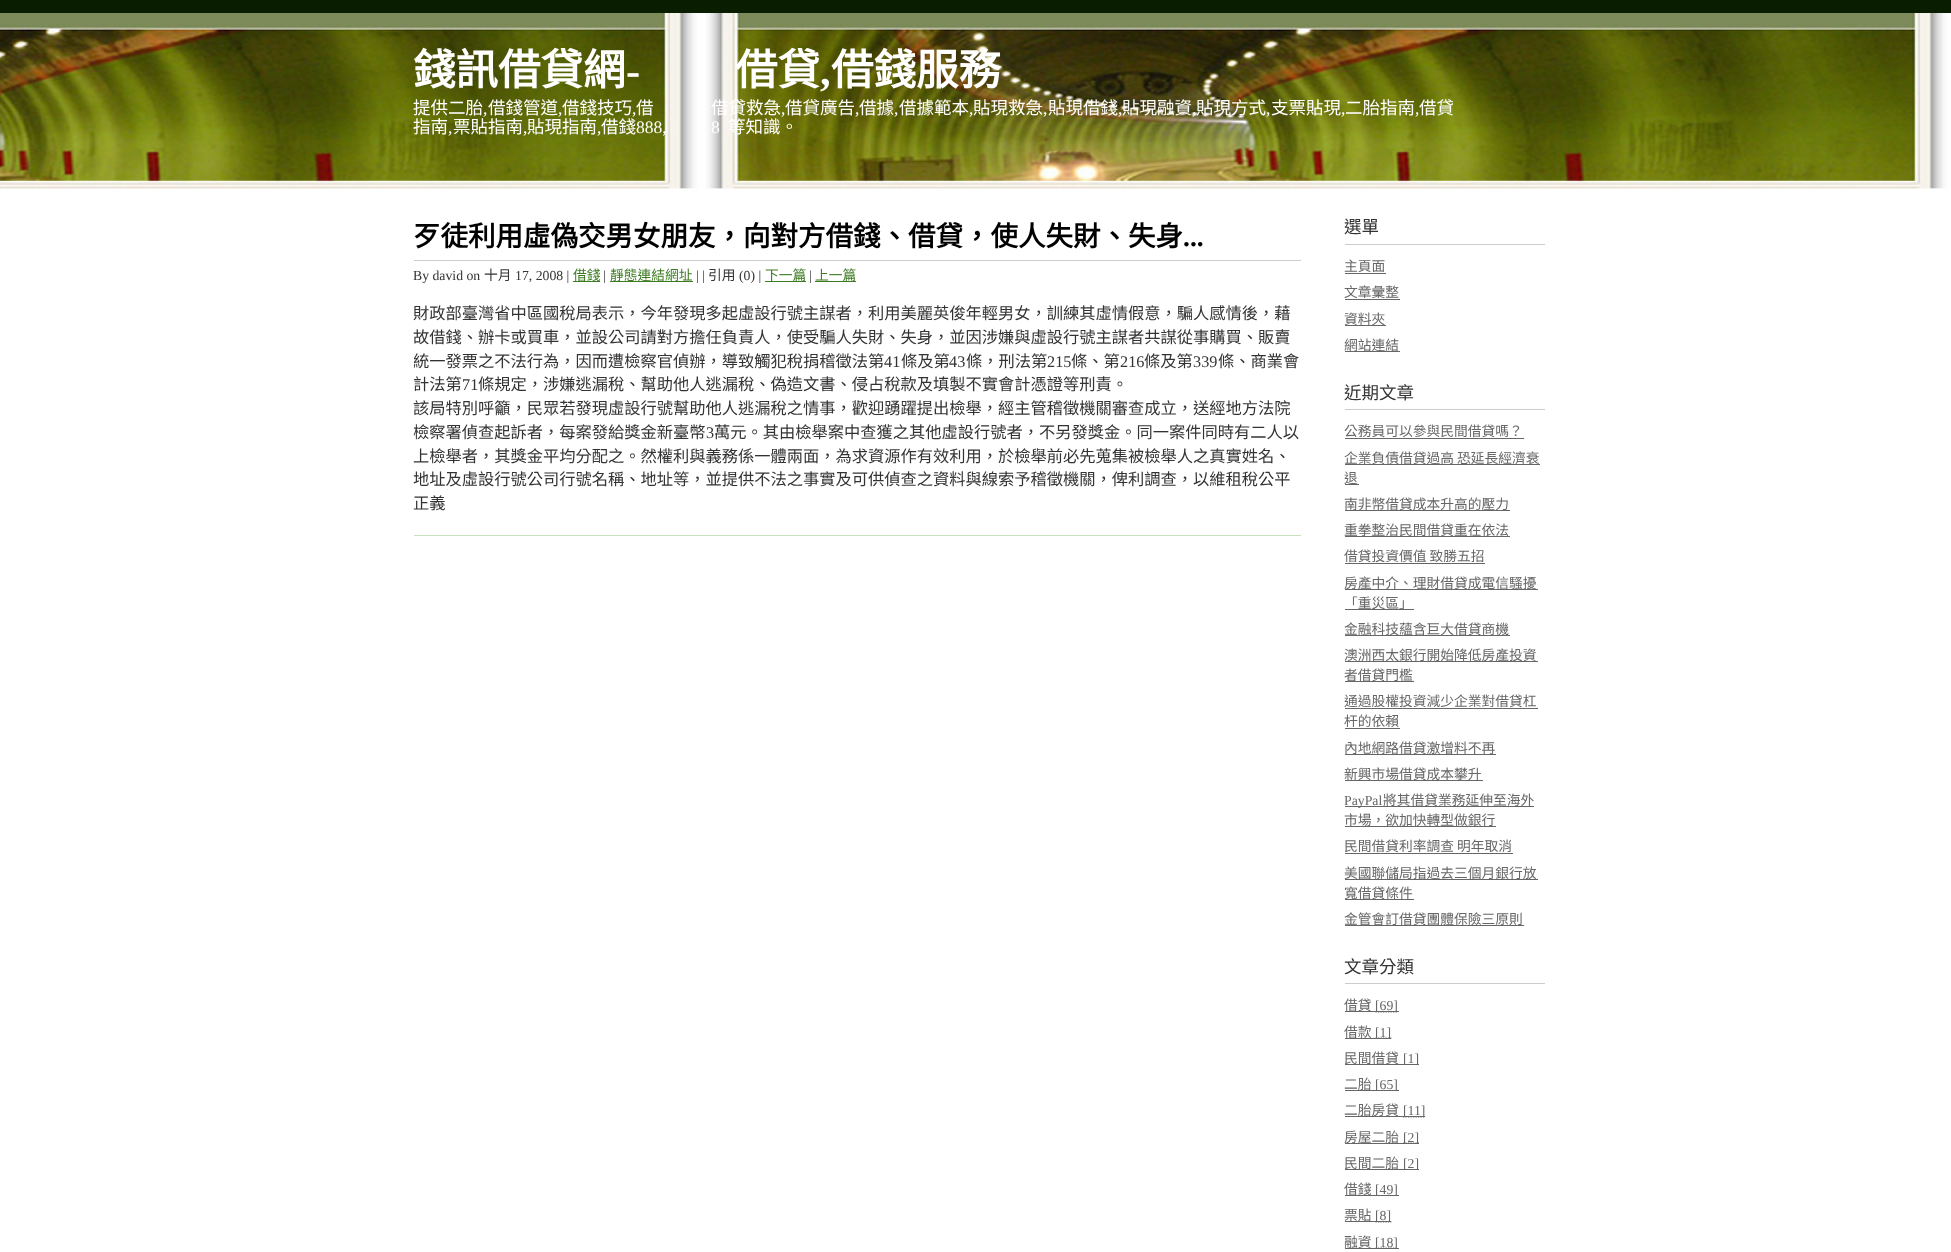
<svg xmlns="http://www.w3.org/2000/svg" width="1951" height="1252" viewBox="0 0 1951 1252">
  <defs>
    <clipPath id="clip1"><path d="M414 214h887v329H414z"/></clipPath>
  </defs>
  <rect width="100%" height="100%" fill="#fff"/>
  <image x="0" y="13" width="1951" height="176" href="img/1.png"/>
  <path d="M0 0h1951v13H0z" fill="#091e00"/>
  <path d="M414 260h887v1H414z" fill="#ccc"/>
  <path d="M573 281h27v1H573z" fill="#3d7b22"/>
  <path d="M610 281h83v1H610z" fill="#3d7b22"/>
  <path d="M765 281h41v1H765z" fill="#3d7b22"/>
  <path d="M815 281h41v1H815z" fill="#3d7b22"/>
  <path d="M414 535h887v1H414z" fill="#c9e1be"/>
  <path d="M1345 244h200v1H1345z" fill="#ccc"/>
  <path d="M1345 273h41v1H1345z" fill="#666"/>
  <path d="M1345 299h55v1H1345z" fill="#666"/>
  <path d="M1345 325h41v1H1345z" fill="#666"/>
  <path d="M1345 351h55v1H1345z" fill="#666"/>
  <path d="M1345 409h200v1H1345z" fill="#ccc"/>
  <path d="M1345 438h179v1H1345z" fill="#666"/>
  <path d="M1345 464h195v1H1345z" fill="#666"/>
  <path d="M1345 484h14v1H1345z" fill="#666"/>
  <path d="M1345 510h165v1H1345z" fill="#666"/>
  <path d="M1345 536h165v1H1345z" fill="#666"/>
  <path d="M1345 563h140v1H1345z" fill="#666"/>
  <path d="M1345 589h193v1H1345z" fill="#666"/>
  <path d="M1345 609h69v1H1345z" fill="#666"/>
  <path d="M1345 635h165v1H1345z" fill="#666"/>
  <path d="M1345 661h193v1H1345z" fill="#666"/>
  <path d="M1345 681h69v1H1345z" fill="#666"/>
  <path d="M1345 708h193v1H1345z" fill="#666"/>
  <path d="M1345 728h55v1H1345z" fill="#666"/>
  <path d="M1345 754h151v1H1345z" fill="#666"/>
  <path d="M1345 780h138v1H1345z" fill="#666"/>
  <path d="M1345 806h189v1H1345z" fill="#666"/>
  <path d="M1345 826h151v1H1345z" fill="#666"/>
  <path d="M1345 853h168v1H1345z" fill="#666"/>
  <path d="M1345 879h193v1H1345z" fill="#666"/>
  <path d="M1345 899h69v1H1345z" fill="#666"/>
  <path d="M1345 925h179v1H1345z" fill="#666"/>
  <path d="M1345 983h200v1H1345z" fill="#ccc"/>
  <path d="M1345 1011h30v1H1345z" fill="#666"/>
  <path d="M1375.5 1012H1398" fill="none" stroke="#666" stroke-width="1.2" stroke-dasharray="1.25 1.25"/>
  <path d="M1375 1011h24v1H1375z" fill="#666"/>
  <path d="M1345 1038h30v1H1345z" fill="#666"/>
  <path d="M1375.5 1038H1391.5" fill="none" stroke="#666" stroke-width="1.2" stroke-dasharray="1.25 1.25"/>
  <path d="M1375 1038h16v1H1375z" fill="#666"/>
  <path d="M1345 1064h58v1H1345z" fill="#666"/>
  <path d="M1403 1064.5H1419" fill="none" stroke="#666" stroke-width="1.2" stroke-dasharray="1.25 1.25"/>
  <path d="M1403 1064h16v1H1403z" fill="#666"/>
  <path d="M1345 1090h30v1H1345z" fill="#666"/>
  <path d="M1375.5 1090.5H1398" fill="none" stroke="#666" stroke-width="1.2" stroke-dasharray="1.25 1.25"/>
  <path d="M1375 1090h24v1H1375z" fill="#666"/>
  <path d="M1345 1116h58v1H1345z" fill="#666"/>
  <path d="M1403 1117H1425" fill="none" stroke="#666" stroke-width="1.2" stroke-dasharray="1.25 1.25"/>
  <path d="M1403 1116h22v1H1403z" fill="#666"/>
  <path d="M1345 1143h58v1H1345z" fill="#666"/>
  <path d="M1403 1143H1419" fill="none" stroke="#666" stroke-width="1.2" stroke-dasharray="1.25 1.25"/>
  <path d="M1403 1143h16v1H1403z" fill="#666"/>
  <path d="M1345 1169h58v1H1345z" fill="#666"/>
  <path d="M1403 1169.5H1419" fill="none" stroke="#666" stroke-width="1.2" stroke-dasharray="1.25 1.25"/>
  <path d="M1403 1169h16v1H1403z" fill="#666"/>
  <path d="M1345 1195h30v1H1345z" fill="#666"/>
  <path d="M1375.5 1195.5H1398" fill="none" stroke="#666" stroke-width="1.2" stroke-dasharray="1.25 1.25"/>
  <path d="M1375 1195h24v1H1375z" fill="#666"/>
  <path d="M1345 1221h30v1H1345z" fill="#666"/>
  <path d="M1375.5 1222H1391.5" fill="none" stroke="#666" stroke-width="1.2" stroke-dasharray="1.25 1.25"/>
  <path d="M1375 1221h16v1H1375z" fill="#666"/>
  <path d="M1345 1248h30v1H1345z" fill="#666"/>
  <path d="M1375.5 1248H1398" fill="none" stroke="#666" stroke-width="1.2" stroke-dasharray="1.25 1.25"/>
  <path d="M1375 1248h24v1H1375z" fill="#666"/>
  <text x="413" y="85" font-family="Noto Sans CJK TC" font-size="42.5" font-weight="bold" fill="#fff">錢訊借貸網</text>
  <text x="626" y="85" font-family="Liberation Serif" font-size="42.5" font-weight="bold" fill="#fff">-</text>
  <g font-family="Noto Sans CJK TC" font-size="42.5" font-weight="bold" fill="#fff">
    <text x="735" y="85">借貸</text>
    <text x="831" y="85">借錢服務</text>
  </g>
  <text x="820" y="85" font-family="Liberation Serif" font-size="42.5" font-weight="bold" fill="#fff">,</text>
  <text x="413" y="114" font-family="Noto Sans CJK TC" font-size="17.5" fill="#fff">提供二胎</text>
  <text x="483" y="114" font-family="Liberation Serif" font-size="17.5" fill="#fff">,</text>
  <text x="488" y="114" font-family="Noto Sans CJK TC" font-size="17.5" fill="#fff">借錢管道</text>
  <text x="558" y="114" font-family="Liberation Serif" font-size="17.5" fill="#fff">,</text>
  <text x="562" y="114" font-family="Noto Sans CJK TC" font-size="17.5" fill="#fff">借錢技巧</text>
  <text x="632" y="114" font-family="Liberation Serif" font-size="17.5" fill="#fff">,</text>
  <g font-family="Noto Sans CJK TC" font-size="17.5" fill="#fff">
    <text x="636" y="114">借</text>
    <text x="711" y="114">借貸救急</text>
  </g>
  <text x="781" y="114" font-family="Liberation Serif" font-size="17.5" fill="#fff">,</text>
  <text x="785" y="114" font-family="Noto Sans CJK TC" font-size="17.5" fill="#fff">借貸廣告</text>
  <text x="855" y="114" font-family="Liberation Serif" font-size="17.5" fill="#fff">,</text>
  <text x="859" y="114" font-family="Noto Sans CJK TC" font-size="17.5" fill="#fff">借據</text>
  <text x="894" y="114" font-family="Liberation Serif" font-size="17.5" fill="#fff">,</text>
  <text x="899" y="114" font-family="Noto Sans CJK TC" font-size="17.5" fill="#fff">借據範本</text>
  <text x="969" y="114" font-family="Liberation Serif" font-size="17.5" fill="#fff">,</text>
  <text x="973" y="114" font-family="Noto Sans CJK TC" font-size="17.5" fill="#fff">貼現救急</text>
  <text x="1043" y="114" font-family="Liberation Serif" font-size="17.5" fill="#fff">,</text>
  <text x="1048" y="114" font-family="Noto Sans CJK TC" font-size="17.5" fill="#fff">貼現借錢</text>
  <text x="1118" y="114" font-family="Liberation Serif" font-size="17.5" fill="#fff">,</text>
  <text x="1122" y="114" font-family="Noto Sans CJK TC" font-size="17.5" fill="#fff">貼現融資</text>
  <text x="1192" y="114" font-family="Liberation Serif" font-size="17.5" fill="#fff">,</text>
  <text x="1196" y="114" font-family="Noto Sans CJK TC" font-size="17.5" fill="#fff">貼現方式</text>
  <text x="1266" y="114" font-family="Liberation Serif" font-size="17.5" fill="#fff">,</text>
  <text x="1271" y="114" font-family="Noto Sans CJK TC" font-size="17.5" fill="#fff">支票貼現</text>
  <text x="1341" y="114" font-family="Liberation Serif" font-size="17.5" fill="#fff">,</text>
  <text x="1345" y="114" font-family="Noto Sans CJK TC" font-size="17.5" fill="#fff">二胎指南</text>
  <text x="1415" y="114" font-family="Liberation Serif" font-size="17.5" fill="#fff">,</text>
  <g font-family="Noto Sans CJK TC" font-size="17.5" fill="#fff">
    <text x="1419" y="114">借貸</text>
    <text x="413" y="133">指南</text>
  </g>
  <text x="448" y="133" font-family="Liberation Serif" font-size="17.5" fill="#fff">,</text>
  <text x="453" y="133" font-family="Noto Sans CJK TC" font-size="17.5" fill="#fff">票貼指南</text>
  <text x="523" y="133" font-family="Liberation Serif" font-size="17.5" fill="#fff">,</text>
  <text x="527" y="133" font-family="Noto Sans CJK TC" font-size="17.5" fill="#fff">貼現指南</text>
  <text x="597" y="133" font-family="Liberation Serif" font-size="17.5" fill="#fff">,</text>
  <text x="601" y="133" font-family="Noto Sans CJK TC" font-size="17.5" fill="#fff">借錢</text>
  <g font-family="Liberation Serif" font-size="17.5" fill="#fff">
    <text x="636" y="133">888,</text>
    <text x="711" y="133">8</text>
  </g>
  <text x="728" y="133" font-family="Noto Sans CJK TC" font-size="17.5" fill="#fff">等知識。</text>
  <text x="413" y="246" font-family="Noto Sans CJK TC" font-size="27.5" font-weight="bold" fill="#000">歹徒利用虛偽交男女朋友，向對方借錢、借貸，使人失財、失身</text>
  <text x="1183" y="246" font-family="Liberation Serif" font-size="27.5" font-weight="bold" fill="#000">...</text>
  <text x="413" y="280" font-family="Liberation Serif" font-size="13.75" fill="#333">By david on</text>
  <text x="484" y="280" font-family="Noto Sans CJK TC" font-size="13.75" fill="#333">十月</text>
  <text x="515" y="280" font-family="Liberation Serif" font-size="13.75" fill="#333">17, 2008 |</text>
  <text x="573" y="280" font-family="Noto Sans CJK TC" font-size="13.75" fill="#3d7b22">借錢</text>
  <text x="603" y="280" font-family="Liberation Serif" font-size="13.75" fill="#333">|</text>
  <text x="610" y="280" font-family="Noto Sans CJK TC" font-size="13.75" fill="#3d7b22">靜態連結網址</text>
  <text x="696" y="280" font-family="Liberation Serif" font-size="13.75" fill="#333">| |</text>
  <text x="708" y="280" font-family="Noto Sans CJK TC" font-size="13.75" fill="#333">引用</text>
  <text x="739" y="280" font-family="Liberation Serif" font-size="13.75" fill="#333">(0) |</text>
  <text x="765" y="280" font-family="Noto Sans CJK TC" font-size="13.75" fill="#3d7b22">下一篇</text>
  <text x="809" y="280" font-family="Liberation Serif" font-size="13.75" fill="#333">|</text>
  <text x="815" y="280" font-family="Noto Sans CJK TC" font-size="13.75" fill="#3d7b22">上一篇</text>
  <g font-family="Noto Sans CJK TC" font-size="16.25" fill="#333">
    <text x="413" y="319">財政部臺灣省中區國稅局表示，今年發現多起虛設行號主謀者，利用美麗英俊年輕男女，訓練其虛情假意，騙人感情後，藉</text>
    <text x="413" y="343">故借錢、辦卡或買車，並設公司請對方擔任負責人，使受騙人失財、失身，並因涉嫌與虛設行號主謀者共謀從事購買、販賣</text>
  </g>
  <g clip-path="url(#clip1)">
    <text x="413" y="367" font-family="Noto Sans CJK TC" font-size="16.25" fill="#333">統一發票之不法行為，因而遭檢察官偵辦，導致觸犯稅捐稽徵法第</text>
  </g>
  <text x="884" y="367" font-family="Liberation Serif" font-size="16.25" fill="#333">41</text>
  <text x="901" y="367" font-family="Noto Sans CJK TC" font-size="16.25" fill="#333">條及第</text>
  <text x="949" y="367" font-family="Liberation Serif" font-size="16.25" fill="#333">43</text>
  <text x="966" y="367" font-family="Noto Sans CJK TC" font-size="16.25" fill="#333">條，刑法第</text>
  <text x="1047" y="367" font-family="Liberation Serif" font-size="16.25" fill="#333">215</text>
  <text x="1071" y="367" font-family="Noto Sans CJK TC" font-size="16.25" fill="#333">條、第</text>
  <text x="1120" y="367" font-family="Liberation Serif" font-size="16.25" fill="#333">216</text>
  <text x="1144" y="367" font-family="Noto Sans CJK TC" font-size="16.25" fill="#333">條及第</text>
  <text x="1193" y="367" font-family="Liberation Serif" font-size="16.25" fill="#333">339</text>
  <g font-family="Noto Sans CJK TC" font-size="16.25" fill="#333">
    <text x="1218" y="367">條、商業會</text>
    <text x="413" y="390">計法第</text>
  </g>
  <text x="462" y="390" font-family="Liberation Serif" font-size="16.25" fill="#333">71</text>
  <g font-family="Noto Sans CJK TC" font-size="16.25" fill="#333">
    <text x="478" y="390">條規定，涉嫌逃漏稅、幫助他人逃漏稅、偽造文書、侵占稅款及填製不實會計憑證等刑責。</text>
    <text x="413" y="414">該局特別呼籲，民眾若發現虛設行號幫助他人逃漏稅之情事，歡迎踴躍提出檢舉，經主管稽徵機關審查成立，送經地方法院</text>
    <text x="413" y="438">檢察署偵查起訴者，每案發給獎金新臺幣</text>
  </g>
  <text x="706" y="438" font-family="Liberation Serif" font-size="16.25" fill="#333">3</text>
  <g font-family="Noto Sans CJK TC" font-size="16.25" fill="#333">
    <text x="714" y="438">萬元。其由檢舉案中查獲之其他虛設行號者，不另發獎金。同一案件同時有二人以</text>
    <text x="413" y="462">上檢舉者，其獎金平均分配之。然權利與義務係一體兩面，為求資源作有效利用，於檢舉前必先蒐集被檢舉人之真實姓名、</text>
    <text x="413" y="485">地址及虛設行號公司行號名稱、地址等，並提供不法之事實及可供偵查之資料與線索予稽徵機關，俾利調查，以維租稅公平</text>
    <text x="413" y="509">正義</text>
  </g>
  <text x="1344" y="233" font-family="Noto Sans CJK TC" font-size="17.5" fill="#333">選單</text>
  <g font-family="Noto Sans CJK TC" font-size="13.75" fill="#666">
    <text x="1344" y="271">主頁面</text>
    <text x="1344" y="297">文章彙整</text>
    <text x="1344" y="324">資料夾</text>
    <text x="1344" y="350">網站連結</text>
  </g>
  <text x="1344" y="399" font-family="Noto Sans CJK TC" font-size="17.5" fill="#333">近期文章</text>
  <g font-family="Noto Sans CJK TC" font-size="13.75" fill="#666">
    <text x="1344" y="436">公務員可以參與民間借貸嗎？</text>
    <text x="1344" y="463">企業負債借貸過高 恐延長經濟衰</text>
    <text x="1344" y="483">退</text>
    <text x="1344" y="509">南非幣借貸成本升高的壓力</text>
    <text x="1344" y="535">重拳整治民間借貸重在依法</text>
    <text x="1344" y="561">借貸投資價值 致勝五招</text>
    <text x="1344" y="588">房產中介、理財借貸成電信騷擾</text>
    <text x="1344" y="608">「重災區」</text>
    <text x="1344" y="634">金融科技蘊含巨大借貸商機</text>
    <text x="1344" y="660">澳洲西太銀行開始降低房產投資</text>
    <text x="1344" y="680">者借貸門檻</text>
    <text x="1344" y="706">通過股權投資減少企業對借貸杠</text>
    <text x="1344" y="726">杆的依賴</text>
    <text x="1344" y="753">內地網路借貸激增料不再</text>
    <text x="1344" y="779">新興市場借貸成本攀升</text>
  </g>
  <text x="1344" y="805" font-family="Liberation Serif" font-size="13.75" fill="#666">PayPal</text>
  <g font-family="Noto Sans CJK TC" font-size="13.75" fill="#666">
    <text x="1383" y="805">將其借貸業務延伸至海外</text>
    <text x="1344" y="825">市場，欲加快轉型做銀行</text>
    <text x="1344" y="851">民間借貸利率調查 明年取消</text>
    <text x="1344" y="878">美國聯儲局指過去三個月銀行放</text>
    <text x="1344" y="898">寬借貸條件</text>
    <text x="1344" y="924">金管會訂借貸團體保險三原則</text>
  </g>
  <text x="1344" y="973" font-family="Noto Sans CJK TC" font-size="17.5" fill="#333">文章分類</text>
  <text x="1344" y="1010" font-family="Noto Sans CJK TC" font-size="13.75" fill="#666">借貸</text>
  <text x="1375" y="1010" font-family="Liberation Serif" font-size="13.75" fill="#666">[69]</text>
  <text x="1344" y="1037" font-family="Noto Sans CJK TC" font-size="13.75" fill="#666">借款</text>
  <text x="1375" y="1037" font-family="Liberation Serif" font-size="13.75" fill="#666">[1]</text>
  <text x="1344" y="1063" font-family="Noto Sans CJK TC" font-size="13.75" fill="#666">民間借貸</text>
  <text x="1403" y="1063" font-family="Liberation Serif" font-size="13.75" fill="#666">[1]</text>
  <text x="1344" y="1089" font-family="Noto Sans CJK TC" font-size="13.75" fill="#666">二胎</text>
  <text x="1375" y="1089" font-family="Liberation Serif" font-size="13.75" fill="#666">[65]</text>
  <text x="1344" y="1115" font-family="Noto Sans CJK TC" font-size="13.75" fill="#666">二胎房貸</text>
  <text x="1403" y="1115" font-family="Liberation Serif" font-size="13.75" fill="#666">[11]</text>
  <text x="1344" y="1142" font-family="Noto Sans CJK TC" font-size="13.75" fill="#666">房屋二胎</text>
  <text x="1403" y="1142" font-family="Liberation Serif" font-size="13.75" fill="#666">[2]</text>
  <text x="1344" y="1168" font-family="Noto Sans CJK TC" font-size="13.75" fill="#666">民間二胎</text>
  <text x="1403" y="1168" font-family="Liberation Serif" font-size="13.75" fill="#666">[2]</text>
  <text x="1344" y="1194" font-family="Noto Sans CJK TC" font-size="13.75" fill="#666">借錢</text>
  <text x="1375" y="1194" font-family="Liberation Serif" font-size="13.75" fill="#666">[49]</text>
  <text x="1344" y="1220" font-family="Noto Sans CJK TC" font-size="13.75" fill="#666">票貼</text>
  <text x="1375" y="1220" font-family="Liberation Serif" font-size="13.75" fill="#666">[8]</text>
  <text x="1344" y="1247" font-family="Noto Sans CJK TC" font-size="13.75" fill="#666">融資</text>
  <text x="1375" y="1247" font-family="Liberation Serif" font-size="13.75" fill="#666">[18]</text>
</svg>
